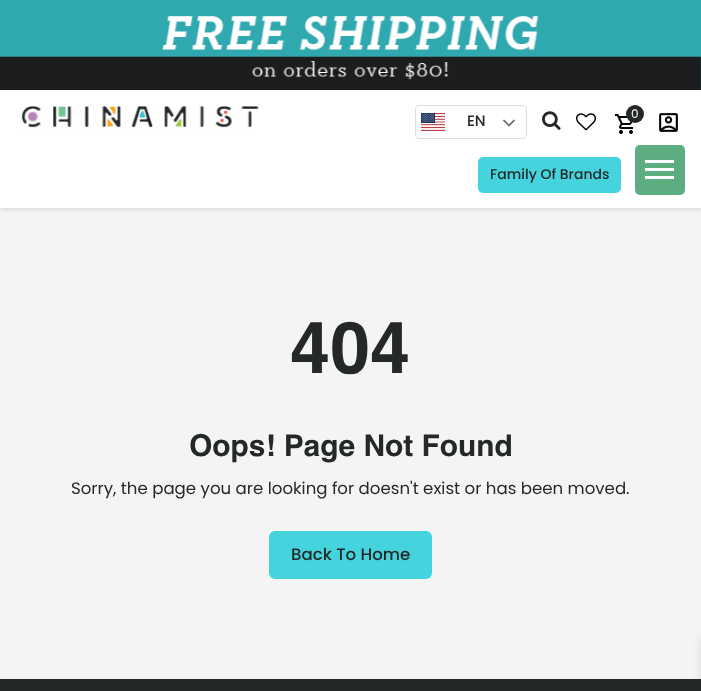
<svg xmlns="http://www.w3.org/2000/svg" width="701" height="691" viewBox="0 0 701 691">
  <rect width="100%" height="100%" fill="#f4f4f4"/>
  <path d="M0 2h701v208H0z" fill="#0000001a" filter="blur(2px)"/>
  <path d="M0 90h701v118H0z" fill="#fff"/>
  <path d="M0 0h701v90H0z" fill="#30a8af"/>
  <image x="0" y="16" width="701" height="74" href="img/1.png"/>
  <image x="21" y="106" width="238" height="24" href="img/2.png"/>
  <rect x="415.5" y="105.5" width="111" height="33" rx="3.5" fill="none" stroke="#ddd"/>
  <image x="421" y="113" width="24" height="18" href="img/3.png"/>
  <image x="503" y="119" width="12" height="8" href="img/4.png"/>
  <image x="542" y="111" width="19" height="19" href="img/5.png"/>
  <image x="576" y="113" width="20" height="18" href="img/6.png"/>
  <image x="615" y="114" width="18" height="20" href="img/7.png"/>
  <circle cx="635" cy="114" r="9" fill="#252829"/>
  <image x="659" y="113" width="19" height="19" href="img/8.png"/>
  <rect x="479" y="158" width="141" height="34" rx="4" fill="#45d4dd" stroke="#45d4dd" stroke-width="2"/>
  <rect x="635" y="145" width="50" height="50" rx="5" fill="#5cad80"/>
  <path d="M645 160h29v3H645z" fill="#fff"/>
  <path d="M645 168h29v3H645z" fill="#fff"/>
  <path d="M645 176h29v3H645z" fill="#fff"/>
  <rect x="270" y="532" width="161" height="46" rx="5" fill="#45d4dd" stroke="#45d4dd" stroke-width="2"/>
  <path d="M0 679h701v12H0z" fill="#252829"/>
  <path d="M701 637h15v53H701z" fill="#0000001a" filter="blur(5px)"/>
  <text x="467" y="126" font-family="Poppins" font-size="15" font-weight="500" fill="#252829">EN</text>
  <text x="631" y="118" font-family="Poppins" font-size="12" fill="#fff">0</text>
  <text x="490" y="179" font-family="Poppins" font-size="14" font-weight="500" fill="#252829">Family Of Brands</text>
  <text x="290" y="373" font-family="Helvetica" font-size="72" font-weight="bold" fill="#252829">404</text>
  <text x="189" y="456" font-family="Helvetica" font-size="29.9" font-weight="bold" fill="#252829">Oops! Page Not Found</text>
  <text x="71" y="494" font-family="Poppins" font-size="16.6" fill="#252829">Sorry, the page you are looking for doesn't exist or has been moved.</text>
  <text x="291" y="560" font-family="Poppins" font-size="16.6" font-weight="500" fill="#252829">Back To Home</text>
</svg>
